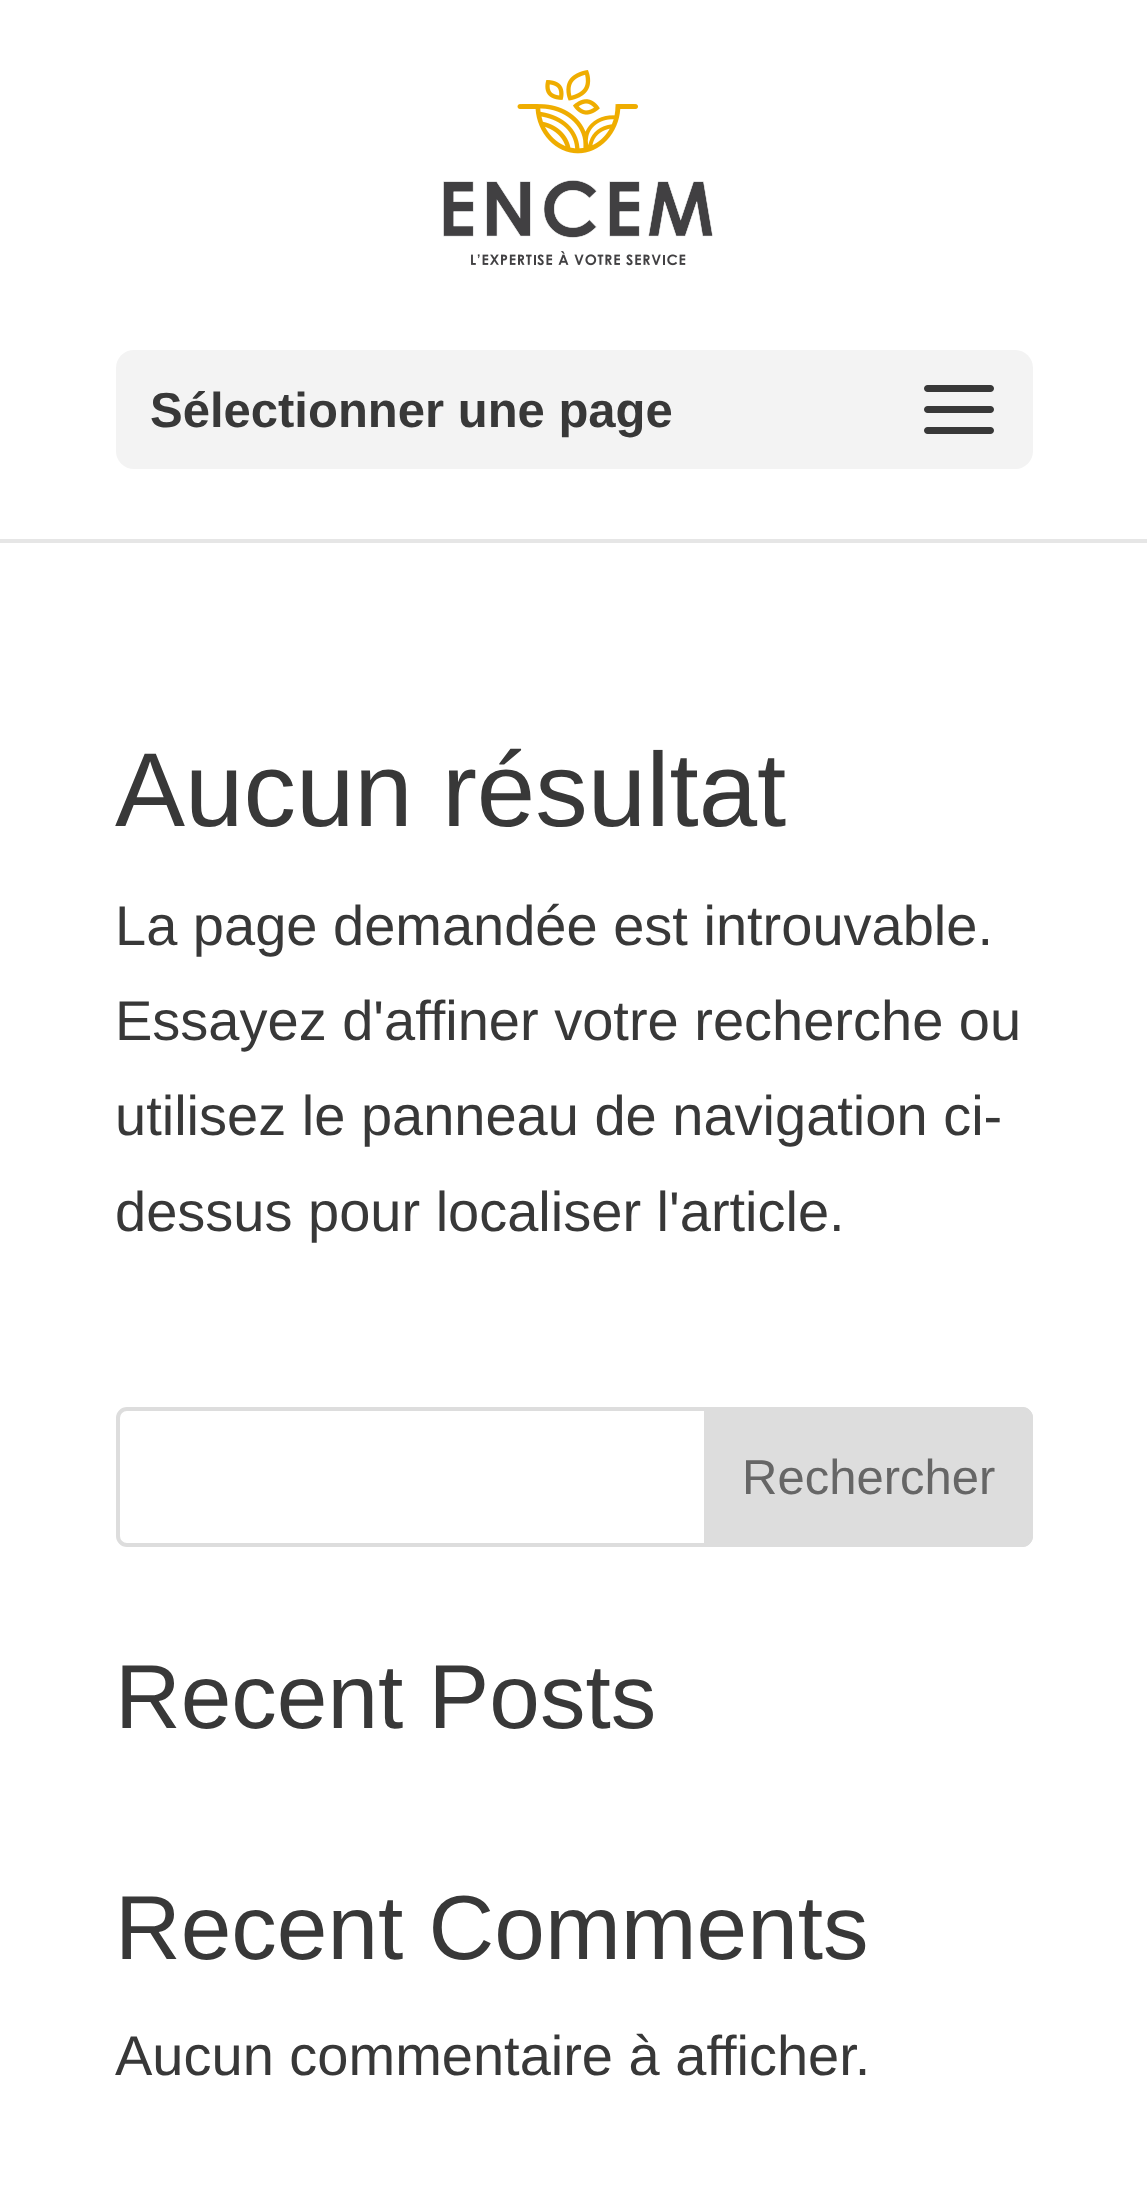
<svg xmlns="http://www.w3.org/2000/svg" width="1147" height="2207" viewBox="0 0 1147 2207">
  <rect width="100%" height="100%" fill="#fff"/>
  <path d="M0 539h1147v4H0z" fill="#e6e6e6"/>
  <image x="443" y="70" width="270" height="196" href="img/1.png"/>
  <rect x="116" y="350" width="917" height="119" rx="18" fill="#f3f3f3"/>
  <image x="924" y="385" width="70" height="49" href="img/2.png"/>
  <rect x="118" y="1409" width="913" height="136" rx="9" fill="none" stroke="#ddd" stroke-width="4"/>
  <path d="M706 1409H1022C1027 1409 1031 1413 1031 1418V1536C1031 1541 1027 1545 1022 1545H706Z" fill="#ddd" stroke="#ddd" stroke-width="4"/>
  <text x="150" y="427" font-family="Liberation Sans" font-size="49" font-weight="bold" fill="#383838">Sélectionner une page</text>
  <text x="115" y="826" font-family="Liberation Sans" font-size="105" fill="#383838">Aucun résultat</text>
  <g font-family="Liberation Sans" font-size="56" fill="#383838">
    <text x="115" y="945">La page demandée est introuvable.</text>
    <text x="115" y="1040">Essayez d'affiner votre recherche ou</text>
    <text x="115" y="1135">utilisez le panneau de navigation ci-</text>
    <text x="115" y="1231">dessus pour localiser l'article.</text>
  </g>
  <text x="742" y="1494" font-family="Liberation Sans" font-size="49" fill="#666">Rechercher</text>
  <g font-family="Liberation Sans" font-size="91" fill="#383838">
    <text x="115" y="1728">Recent Posts</text>
    <text x="115" y="1959">Recent Comments</text>
  </g>
  <text x="115" y="2075" font-family="Liberation Sans" font-size="56" fill="#383838">Aucun commentaire à afficher.</text>
</svg>
